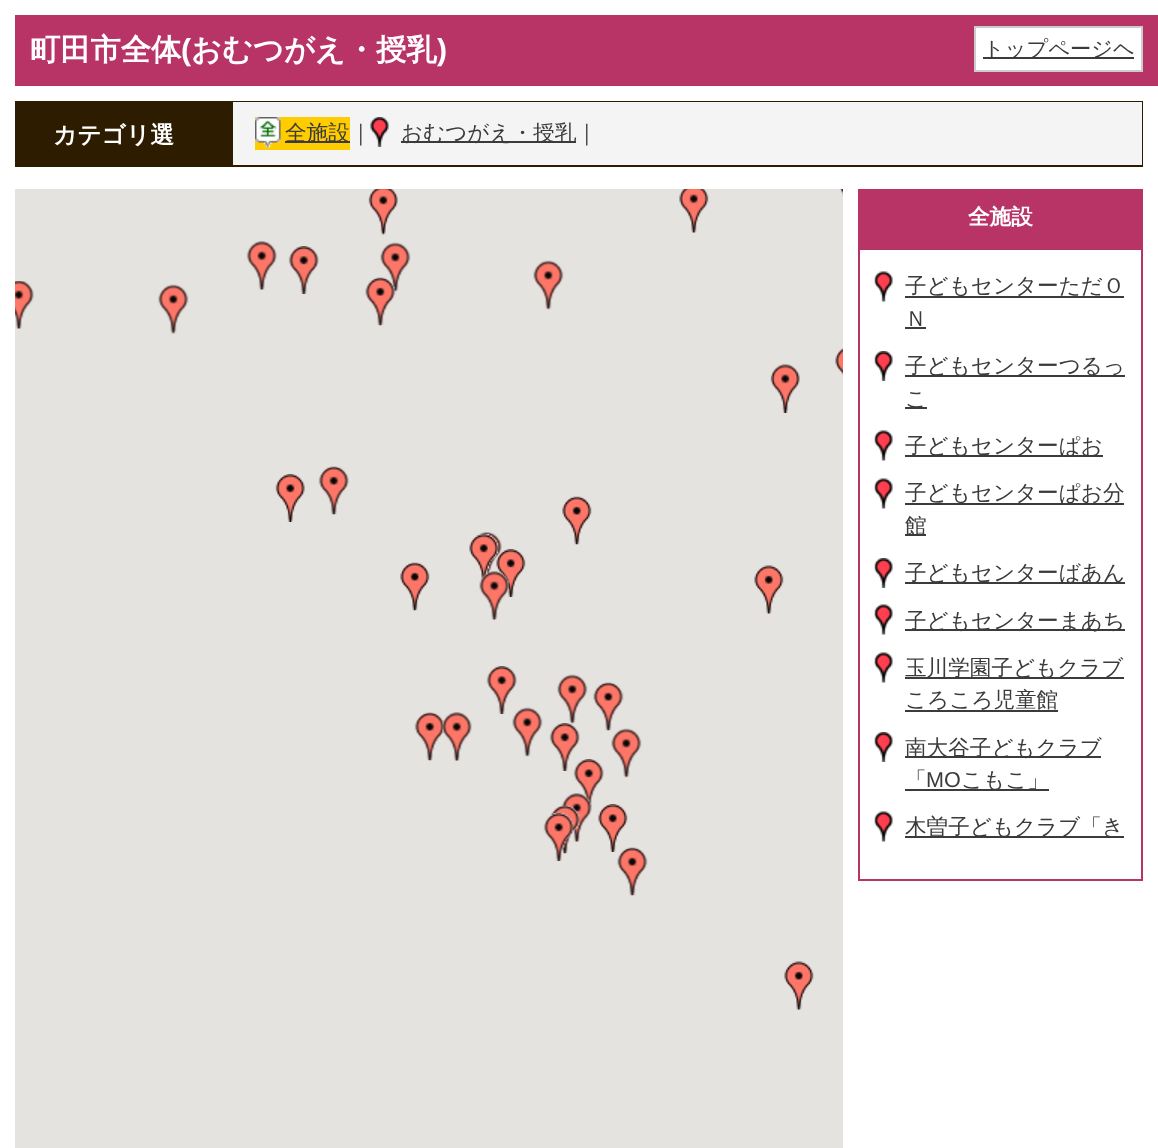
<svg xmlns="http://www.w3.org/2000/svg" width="1158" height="1148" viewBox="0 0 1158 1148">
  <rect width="100%" height="100%" fill="#fff"/>
  <path d="M15 15h1143v71H15z" fill="#b83366"/>
  <path d="M975 27h167v44H975z" fill="#fff" stroke="#ccc" stroke-width="2"/>
  <path d="M983 57h151v2H983z" fill="#3b3b3b"/>
  <path d="M15 101h1128v66H15z" fill="#2e1c00"/>
  <path d="M233 102h909v63H233z" fill="#f4f4f4"/>
  <path d="M255 117h95v33H255z" fill="#fc0"/>
  <image x="255" y="117" width="26" height="30" href="img/1.png"/>
  <path d="M285 141h65v2H285z" fill="#3b3b3b"/>
  <image x="370" y="117" width="19" height="30" href="img/2.png"/>
  <path d="M401 141h175v2H401z" fill="#3b3b3b"/>
  <path d="M15 189h828v959H15z" fill="#e5e3df"/>
  <image x="368" y="189" width="30" height="46" href="img/3.png"/>
  <image x="679" y="189" width="30" height="44" href="img/4.png"/>
  <image x="839" y="189" width="4" height="8" href="img/5.png"/>
  <image x="246" y="241" width="31" height="49" href="img/6.png"/>
  <image x="288" y="246" width="31" height="48" href="img/7.png"/>
  <image x="380" y="242" width="31" height="50" href="img/8.png"/>
  <image x="533" y="260" width="31" height="50" href="img/8.png"/>
  <image x="15" y="281" width="19" height="48" href="img/9.png"/>
  <image x="158" y="284" width="31" height="50" href="img/10.png"/>
  <image x="365" y="277" width="31" height="49" href="img/11.png"/>
  <image x="770" y="364" width="30" height="49" href="img/12.png"/>
  <image x="835" y="347" width="8" height="29" href="img/13.png"/>
  <image x="275" y="474" width="30" height="48" href="img/14.png"/>
  <image x="318" y="466" width="31" height="49" href="img/15.png"/>
  <image x="562" y="496" width="30" height="49" href="img/16.png"/>
  <image x="471" y="532" width="31" height="45" href="img/17.png"/>
  <image x="400" y="562" width="30" height="49" href="img/16.png"/>
  <image x="469" y="534" width="30" height="48" href="img/18.png"/>
  <image x="496" y="549" width="30" height="48" href="img/19.png"/>
  <image x="754" y="565" width="30" height="49" href="img/20.png"/>
  <image x="479" y="571" width="31" height="49" href="img/21.png"/>
  <image x="414" y="712" width="31" height="49" href="img/15.png"/>
  <image x="441" y="712" width="31" height="49" href="img/22.png"/>
  <image x="486" y="666" width="31" height="48" href="img/7.png"/>
  <image x="512" y="707" width="31" height="50" href="img/8.png"/>
  <image x="557" y="674" width="31" height="50" href="img/8.png"/>
  <image x="593" y="682" width="31" height="49" href="img/23.png"/>
  <image x="549" y="723" width="31" height="48" href="img/24.png"/>
  <image x="611" y="728" width="31" height="50" href="img/25.png"/>
  <image x="573" y="759" width="31" height="48" href="img/7.png"/>
  <image x="561" y="793" width="31" height="49" href="img/26.png"/>
  <image x="598" y="804" width="30" height="48" href="img/27.png"/>
  <image x="549" y="805" width="31" height="49" href="img/28.png"/>
  <image x="543" y="813" width="31" height="48" href="img/29.png"/>
  <image x="617" y="847" width="31" height="49" href="img/23.png"/>
  <image x="784" y="961" width="30" height="49" href="img/20.png"/>
  <path d="M858 189h285v59H858z" fill="#b83366"/>
  <path d="M859 249h283v631H859z" fill="none" stroke="#b83366" stroke-width="2"/>
  <image x="874" y="271" width="19" height="31" href="img/30.png"/>
  <path d="M905 296h219v2H905z" fill="#3b3b3b"/>
  <path d="M905 327h21v2H905z" fill="#3b3b3b"/>
  <image x="874" y="351" width="19" height="30" href="img/31.png"/>
  <path d="M905 375h220v2H905z" fill="#3b3b3b"/>
  <path d="M905 407h22v2H905z" fill="#3b3b3b"/>
  <image x="874" y="430" width="19" height="31" href="img/30.png"/>
  <path d="M905 455h198v2H905z" fill="#3b3b3b"/>
  <image x="874" y="478" width="19" height="31" href="img/30.png"/>
  <path d="M905 503h219v2H905z" fill="#3b3b3b"/>
  <path d="M905 534h21v2H905z" fill="#3b3b3b"/>
  <image x="874" y="558" width="19" height="30" href="img/31.png"/>
  <path d="M905 582h220v2H905z" fill="#3b3b3b"/>
  <image x="874" y="604" width="19" height="31" href="img/30.png"/>
  <path d="M905 629h220v2H905z" fill="#3b3b3b"/>
  <image x="874" y="652" width="19" height="31" href="img/30.png"/>
  <path d="M905 677h219v2H905z" fill="#3b3b3b"/>
  <path d="M905 710h153v2H905z" fill="#3b3b3b"/>
  <image x="874" y="732" width="19" height="30" href="img/31.png"/>
  <path d="M905 756h196v2H905z" fill="#3b3b3b"/>
  <path d="M905 789h144v2H905z" fill="#3b3b3b"/>
  <image x="874" y="811" width="19" height="31" href="img/30.png"/>
  <path d="M905 836h219v2H905z" fill="#3b3b3b"/>
  <text x="30" y="60" font-family="WenQuanYi Zen Hei" font-size="30.25" font-weight="bold" fill="#fff">町田市全体</text>
  <text x="181" y="60" font-family="Liberation Sans" font-size="30.25" font-weight="bold" fill="#fff">(</text>
  <text x="191" y="60" font-family="WenQuanYi Zen Hei" font-size="30.25" font-weight="bold" fill="#fff">おむつがえ・授乳</text>
  <text x="437" y="60" font-family="Liberation Sans" font-size="30.25" font-weight="bold" fill="#fff">)</text>
  <text x="983" y="56" font-family="WenQuanYi Zen Hei" font-size="21.25" font-weight="500" fill="#3b3b3b">トップページヘ</text>
  <text x="53" y="143" font-family="WenQuanYi Zen Hei" font-size="23.75" font-weight="bold" fill="#fff">カテゴリ選</text>
  <text x="285" y="140" font-family="WenQuanYi Zen Hei" font-size="21.6" font-weight="500" fill="#3b3b3b">全施設</text>
  <text x="350" y="140" font-family="WenQuanYi Zen Hei" font-size="21.6" font-weight="500" fill="#333">｜</text>
  <text x="401" y="140" font-family="WenQuanYi Zen Hei" font-size="21.6" font-weight="500" fill="#3b3b3b">おむつがえ・授乳</text>
  <text x="576" y="140" font-family="WenQuanYi Zen Hei" font-size="21.6" font-weight="500" fill="#333">｜</text>
  <text x="968" y="224" font-family="WenQuanYi Zen Hei" font-size="21.6" font-weight="bold" fill="#fff">全施設</text>
  <g font-family="WenQuanYi Zen Hei" font-size="21.6" font-weight="500" fill="#3b3b3b">
    <text x="905" y="293">子どもセンターただＯ</text>
    <text x="905" y="326">Ｎ</text>
    <text x="905" y="373">子どもセンターつるっ</text>
    <text x="905" y="406">こ</text>
    <text x="905" y="453">子どもセンターぱお</text>
    <text x="905" y="500">子どもセンターぱお分</text>
    <text x="905" y="533">館</text>
    <text x="905" y="580">子どもセンターばあん</text>
    <text x="905" y="628">子どもセンターまあち</text>
    <text x="905" y="675">玉川学園子どもクラブ</text>
    <text x="905" y="707">ころころ児童館</text>
    <text x="905" y="755">南大谷子どもクラブ</text>
    <text x="905" y="787">「</text>
  </g>
  <text x="926" y="787" font-family="Liberation Sans" font-size="21.6" fill="#3b3b3b">MO</text>
  <g font-family="WenQuanYi Zen Hei" font-size="21.6" font-weight="500" fill="#3b3b3b">
    <text x="961" y="787">こもこ」</text>
    <text x="905" y="834">木曽子どもクラブ「き</text>
  </g>
</svg>
